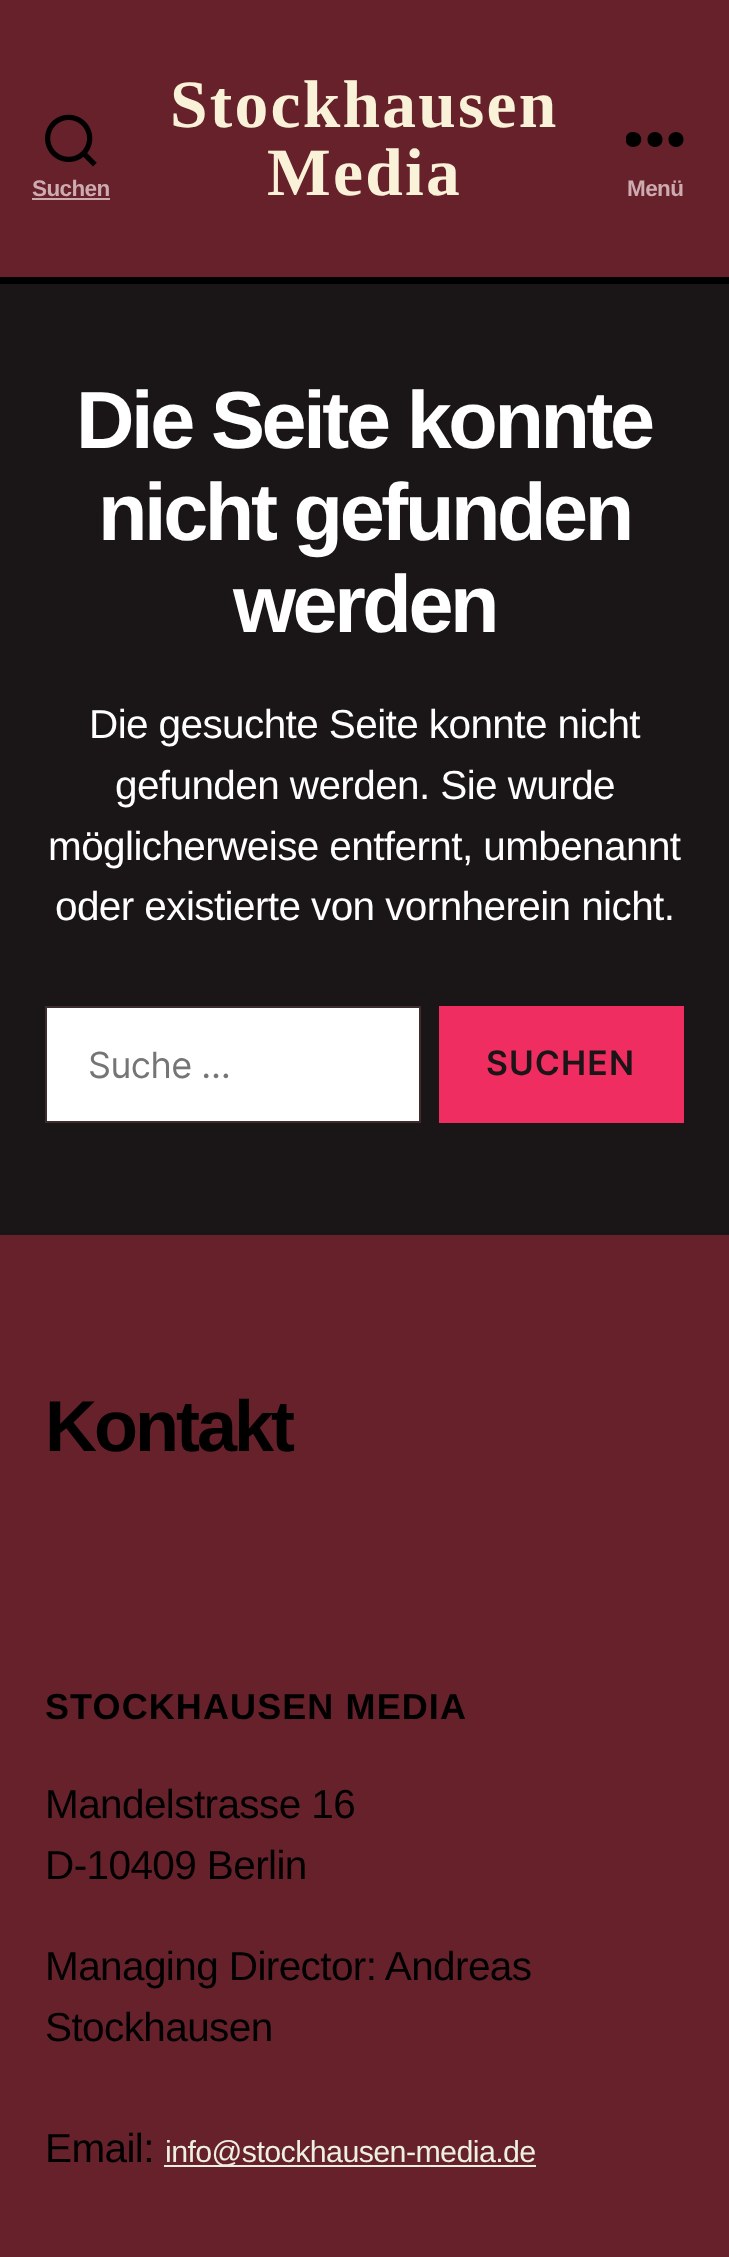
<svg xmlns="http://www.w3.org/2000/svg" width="729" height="2257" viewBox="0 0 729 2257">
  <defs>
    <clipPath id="clip1"><path d="M626 131h58v18H626z"/></clipPath>
  </defs>
  <rect width="100%" height="100%" fill="#1a1516"/>
  <path d="M0 0h729v277H0z" fill="#66212b"/>
  <path d="M0 277h729v7H0z" fill="#000"/>
  <image x="45" y="114" width="52" height="53" href="img/1.png"/>
  <path d="M32 198h78v2H32z" fill="#cdabb1"/>
  <g clip-path="url(#clip1)">
    <path d="M633 147C623 147 623 132 633 132C644 132 644 147 633 147ZM655 147C645 147 645 132 655 132C665 132 665 147 655 147ZM676 147C666 147 666 132 676 132C686 132 686 147 676 147Z" fill="#000" fill-rule="evenodd"/>
  </g>
  <path d="M46 1007h374v115H46z" fill="#fff" stroke="#3d2d2e" stroke-width="2"/>
  <path d="M439 1006h245v117H439z" fill="#f02d61"/>
  <path d="M0 1235h729v1022H0z" fill="#66212b"/>
  <path d="M164 2165h372v2H164z" fill="#edefe1"/>
  <text x="32" y="196" font-family="Liberation Sans" font-size="22.5" font-weight="bold" letter-spacing="-0.6" fill="#cdabb1">Suchen</text>
  <g font-family="Liberation Serif" font-size="67.5" font-weight="bold" letter-spacing="2.25" fill="#faf2d8">
    <text x="170" y="127">Stockhausen</text>
    <text x="267" y="195">Media</text>
  </g>
  <text x="627" y="196" font-family="Liberation Sans" font-size="22.5" font-weight="bold" letter-spacing="-0.6" fill="#cdabb1">Menü</text>
  <g font-family="Liberation Sans" font-size="81" font-weight="bold" letter-spacing="-3.4" fill="#fff">
    <text x="76" y="448">Die Seite konnte</text>
    <text x="98" y="540">nicht gefunden</text>
    <text x="233" y="632">werden</text>
  </g>
  <g font-family="Liberation Sans" font-size="40.5" letter-spacing="-0.6" fill="#fff">
    <text x="89" y="738">Die gesuchte Seite konnte nicht</text>
    <text x="115" y="799">gefunden werden. Sie wurde</text>
    <text x="48" y="860">möglicherweise entfernt, umbenannt</text>
    <text x="55" y="920">oder existierte von vornherein nicht.</text>
  </g>
  <text x="88" y="1078" font-family="Inter" font-size="36" letter-spacing="-0.5" fill="#757575">Suche …</text>
  <text x="486" y="1075" font-family="Inter" font-size="33.75" font-weight="600" letter-spacing="1.1" fill="#1a1516">SUCHEN</text>
  <text x="45" y="1451" font-family="Liberation Sans" font-size="72" font-weight="bold" letter-spacing="-3" fill="#000">Kontakt</text>
  <text x="45" y="1719" font-family="Liberation Sans" font-size="36" font-weight="bold" letter-spacing="1.1" fill="#000">STOCKHAUSEN MEDIA</text>
  <g font-family="Liberation Sans" font-size="40.5" letter-spacing="-0.6" fill="#000">
    <text x="45" y="1818">Mandelstrasse 16</text>
    <text x="45" y="1879">D-10409 Berlin</text>
    <text x="45" y="1980">Managing Director: Andreas</text>
    <text x="45" y="2041">Stockhausen</text>
    <text x="45" y="2162">Email:</text>
  </g>
  <text x="165" y="2162" font-family="Liberation Sans" font-size="30.4" letter-spacing="-0.6" fill="#edefe1">info@stockhausen-media.de</text>
</svg>
